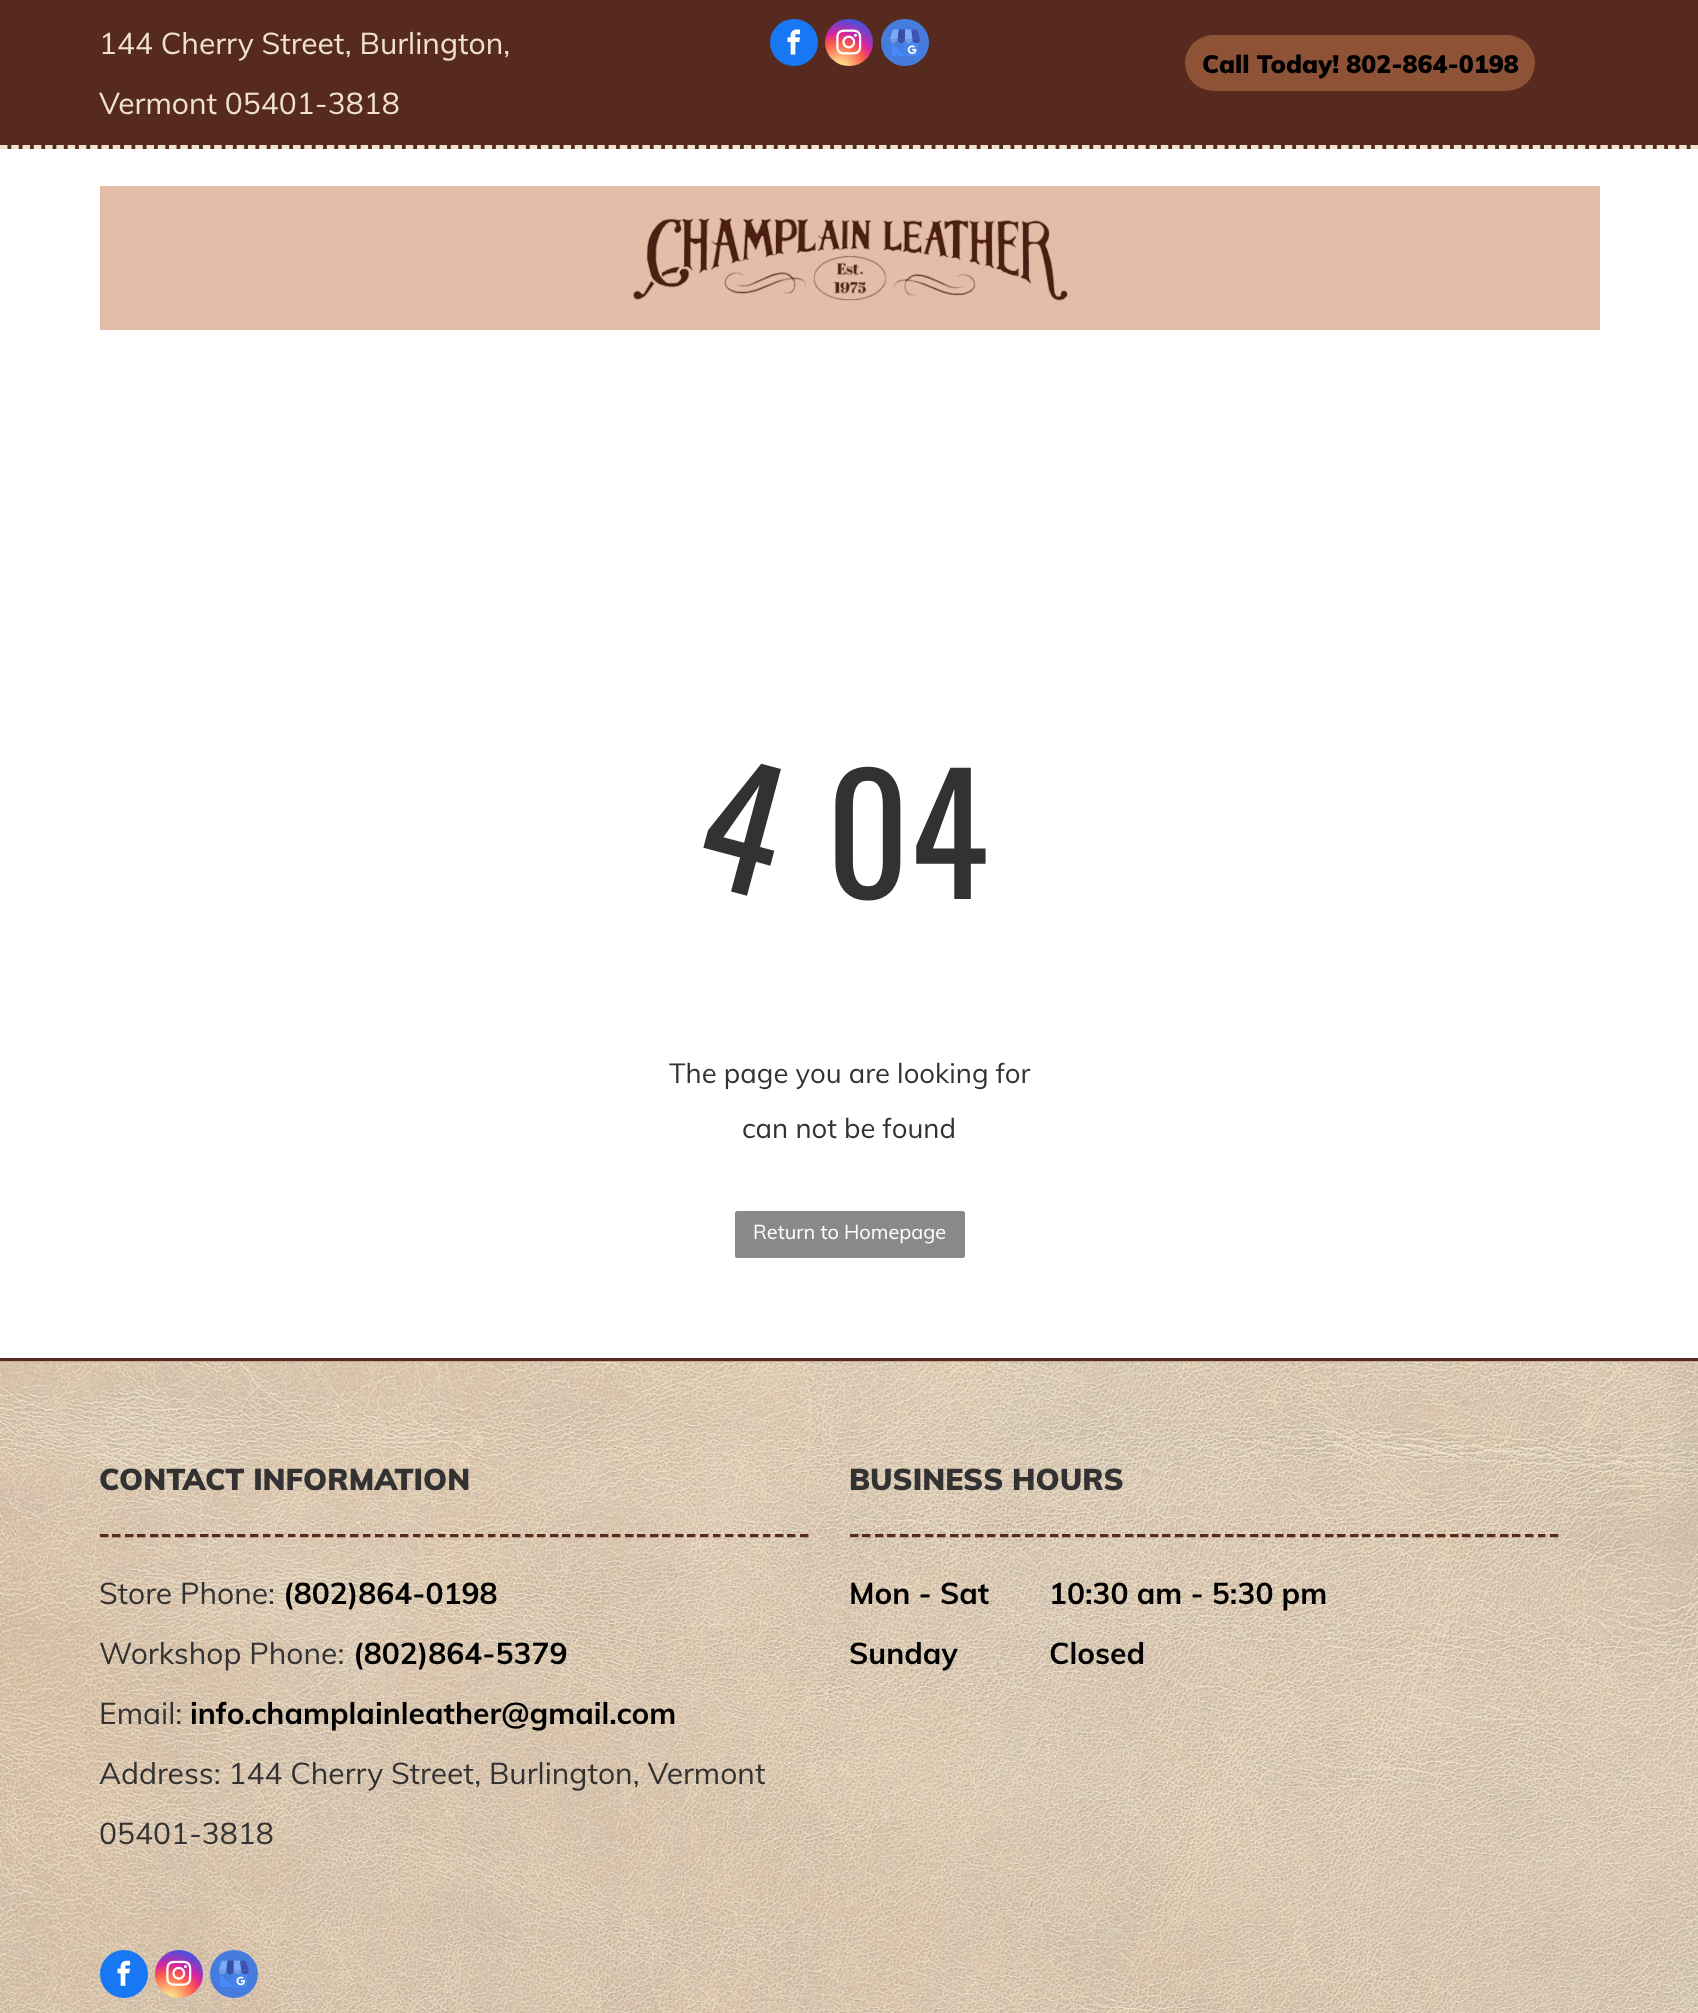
<svg xmlns="http://www.w3.org/2000/svg" width="1698" height="2013" viewBox="0 0 1698 2013">
  <defs>
    <radialGradient id="g1" gradientUnits="userSpaceOnUse" cx="839" cy="70" r="61"><stop offset="0" stop-color="#fdf497"/><stop offset="0.05" stop-color="#fdf497"/><stop offset="0.45" stop-color="#fd5949"/><stop offset="0.6" stop-color="#d6249f"/><stop offset="0.9" stop-color="#285aeb"/></radialGradient>
    <radialGradient id="g2" gradientUnits="userSpaceOnUse" cx="169" cy="2001" r="61"><stop offset="0" stop-color="#fdf497"/><stop offset="0.05" stop-color="#fdf497"/><stop offset="0.45" stop-color="#fd5949"/><stop offset="0.6" stop-color="#d6249f"/><stop offset="0.9" stop-color="#285aeb"/></radialGradient>
  </defs>
  <rect width="100%" height="100%" fill="#fff"/>
  <path d="M0 0h1698v149H0z" fill="#562a1f"/>
  <path d="M0 147H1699" fill="none" stroke="#f0e2cb" stroke-width="3.8" stroke-dasharray="7.5 3.77"/>
  <rect x="770" y="19" width="48" height="47" rx="23.5" fill="#1877f2"/>
  <image x="787" y="29" width="14" height="26" href="img/1.png"/>
  <rect x="825" y="19" width="48" height="47" rx="23.5" fill="url(#g1)"/>
  <image x="836" y="29" width="26" height="26" href="img/2.png"/>
  <rect x="881" y="19" width="48" height="47" rx="23.5" fill="#477cdf"/>
  <image x="890" y="29" width="30" height="27" href="img/3.png"/>
  <rect x="1185" y="35" width="350" height="56" rx="28" fill="#8e5337"/>
  <path d="M100 186h1500v144H100z" fill="#e3bda7"/>
  <image x="633" y="217" width="435" height="84" href="img/4.png"/>
  <rect x="735" y="1211" width="230" height="47" rx="2.5" fill="#898989"/>
  <image x="0" y="1362" width="1698" height="651" href="img/5.png"/>
  <path d="M0 1358h1698v3H0z" fill="#562a1f"/>
  <path d="M0 1361h1698v1H0z" fill="#c2ab97"/>
  <image x="100" y="1534" width="713" height="4" href="img/6.png"/>
  <circle cx="124" cy="1974" r="24" fill="#1877f2"/>
  <image x="117" y="1960" width="14" height="26" href="img/7.png"/>
  <circle cx="179" cy="1974" r="24" fill="url(#g2)"/>
  <image x="166" y="1960" width="26" height="26" href="img/8.png"/>
  <circle cx="234" cy="1974" r="24" fill="#477cdf"/>
  <image x="219" y="1960" width="30" height="27" href="img/9.png"/>
  <image x="850" y="1534" width="709" height="4" href="img/10.png"/>
  <g font-family="Muli" font-size="30" fill="#f0e2cb">
    <text x="99" y="54">144 Cherry Street, Burlington,</text>
    <text x="99" y="114">Vermont 05401-3818</text>
  </g>
  <text x="1202" y="73" font-family="Muli" font-size="25" font-weight="900" fill="#000">Call Today! 802-864-0198</text>
  <g font-family="Oswald" font-size="162" fill="#323232">
    <text x="688" y="880" transform="rotate(15 688 880)">4</text>
    <text x="826" y="899">04</text>
  </g>
  <g font-family="Muli" font-size="27.5" fill="#323232">
    <text x="669" y="1083">The page you are looking for</text>
    <text x="742" y="1138">can not be found</text>
  </g>
  <text x="753" y="1239" font-family="Muli" font-size="20" fill="#fff">Return to Homepage</text>
  <text x="99" y="1490" font-family="Muli" font-size="30" font-weight="900" fill="#323232">CONTACT INFORMATION</text>
  <text x="99" y="1604" font-family="Muli" font-size="30" fill="#323232">Store Phone:</text>
  <text x="283" y="1604" font-family="Muli" font-size="30" font-weight="bold" fill="#000">(802)864-0198</text>
  <text x="99" y="1664" font-family="Muli" font-size="30" fill="#323232">Workshop Phone:</text>
  <text x="353" y="1664" font-family="Muli" font-size="30" font-weight="bold" fill="#000">(802)864-5379</text>
  <text x="99" y="1724" font-family="Muli" font-size="30" fill="#323232">Email:</text>
  <text x="190" y="1724" font-family="Muli" font-size="30" font-weight="bold" fill="#000">info.champlainleather@gmail.com</text>
  <g font-family="Muli" font-size="30" fill="#323232">
    <text x="99" y="1784">Address: 144 Cherry Street, Burlington, Vermont</text>
    <text x="99" y="1844">05401-3818</text>
  </g>
  <text x="849" y="1490" font-family="Muli" font-size="30" font-weight="900" fill="#323232">BUSINESS HOURS</text>
  <g font-family="Muli" font-size="30" font-weight="bold" fill="#000">
    <text x="849" y="1604">Mon - Sat</text>
    <text x="1049" y="1604">10:30 am - 5:30 pm</text>
    <text x="849" y="1664">Sunday</text>
    <text x="1049" y="1664">Closed</text>
  </g>
</svg>
